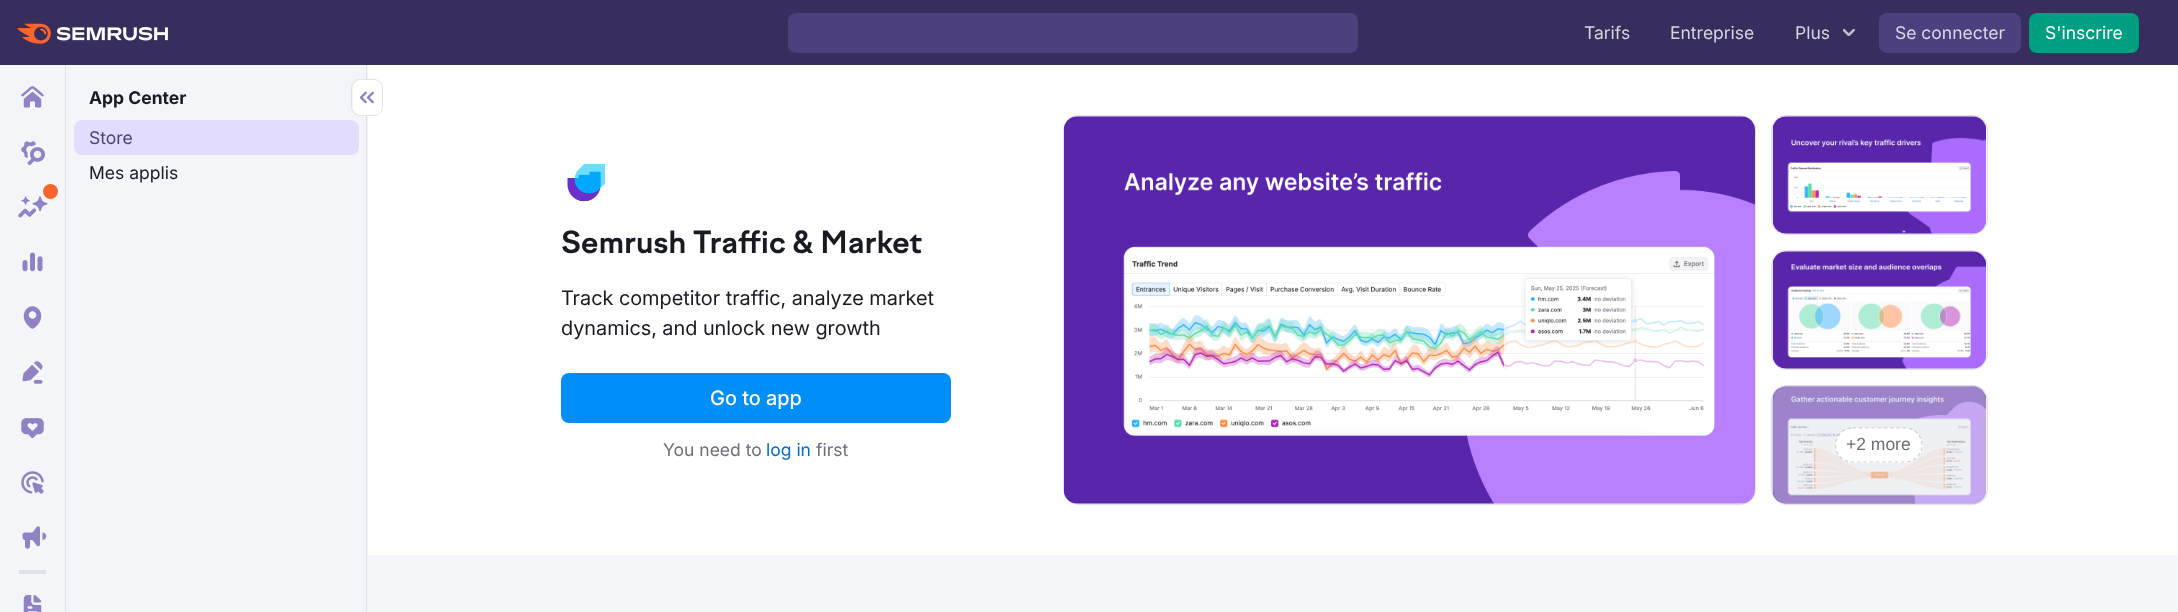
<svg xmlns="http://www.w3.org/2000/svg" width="2178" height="612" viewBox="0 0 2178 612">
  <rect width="100%" height="100%" fill="#fff"/>
  <path d="M0 0h2178v65H0z" fill="#382e5e"/>
  <image x="17" y="23" width="151" height="21" href="img/1.png"/>
  <rect x="788" y="13" width="570" height="40" rx="8" fill="#4d407e"/>
  <image x="1843" y="29" width="12" height="7" href="img/2.png"/>
  <rect x="1879" y="13" width="142" height="40" rx="8" fill="#4d407e"/>
  <rect x="2029" y="13" width="110" height="40" rx="8" fill="#009f81"/>
  <path d="M0 65h368v547H0z" fill="#f4f5f9"/>
  <path d="M65 65h1v547H65z" fill="#e0e1e9"/>
  <image x="21" y="86" width="23" height="22" href="img/3.png"/>
  <image x="21" y="141" width="24" height="24" href="img/4.png"/>
  <image x="18" y="196" width="30" height="22" href="img/5.png"/>
  <circle cx="50.5" cy="191.5" r="7.5" fill="#ff642d"/>
  <image x="22" y="252" width="21" height="20" href="img/6.png"/>
  <image x="23" y="306" width="19" height="23" href="img/7.png"/>
  <image x="22" y="361" width="21" height="23" href="img/8.png"/>
  <image x="21" y="418" width="23" height="21" href="img/9.png"/>
  <image x="21" y="471" width="23" height="23" href="img/10.png"/>
  <image x="22" y="526" width="25" height="23" href="img/11.png"/>
  <path d="M19 570h27v4H19z" fill="#e0e1e9"/>
  <image x="23" y="595" width="19" height="17" href="img/12.png"/>
  <path d="M366 65h1v547H366z" fill="#e0e1e9"/>
  <rect x="74" y="120" width="285" height="35" rx="8" fill="#e2ddff"/>
  <rect x="351.5" y="79.5" width="31" height="36" rx="8.5" fill="none" stroke="#e0e1e9"/>
  <rect x="353" y="80" width="28" height="35" rx="8" fill="#fff"/>
  <image x="359" y="91" width="15" height="13" href="img/13.png"/>
  <image x="567" y="164" width="38" height="38" href="img/14.png"/>
  <rect x="561" y="373" width="390" height="50" rx="8" fill="#008ff8"/>
  <rect x="1063.5" y="115.5" width="692" height="389" rx="14.5" fill="none" stroke="#e0e1e9"/>
  <image x="1064" y="116" width="691" height="388" href="img/15.png"/>
  <rect x="1771.5" y="115.5" width="216" height="119" rx="14.5" fill="none" stroke="#e0e1e9"/>
  <image x="1772" y="116" width="214" height="118" href="img/16.png"/>
  <rect x="1771.5" y="250.5" width="216" height="119" rx="14.5" fill="none" stroke="#e0e1e9"/>
  <image x="1772" y="251" width="214" height="118" href="img/17.png"/>
  <rect x="1771.5" y="385.5" width="216" height="119" rx="14.5" fill="none" stroke="#e0e1e9"/>
  <image x="1772" y="386" width="215" height="118" href="img/18.png"/>
  <rect x="1773" y="386" width="213" height="118" rx="14" fill="#e0e1e980"/>
  <rect x="1835.5" y="428.5" width="87" height="34" rx="17" fill="#fff" stroke="#fff"/>
  <path d="M368 555h1810v57H368z" fill="#f4f5f9"/>
  <g font-family="'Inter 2'" font-size="17.5" fill="#d7d5df">
    <text x="1584" y="39">Tarifs</text>
    <text x="1670" y="39">Entreprise</text>
    <text x="1795" y="39">Plus</text>
  </g>
  <text x="1895" y="39" font-family="'Inter 2'" font-size="17.5" fill="#dbd9e5">Se connecter</text>
  <text x="2045" y="39" font-family="'Inter 2'" font-size="17.5" fill="#fff">S'inscrire</text>
  <text x="89" y="104" font-family="Inter" font-size="17.5" font-weight="bold" fill="#191b23">App Center</text>
  <text x="89" y="144" font-family="'Inter 2'" font-size="17.5" fill="#4d407e">Store</text>
  <text x="89" y="179" font-family="'Inter 2'" font-size="17.5" fill="#191b23">Mes applis</text>
  <text x="561" y="253" font-family="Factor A" font-size="30" font-weight="bold" fill="#191b23">Semrush Traffic &amp; Market</text>
  <g font-family="Inter" font-size="20" fill="#191b23">
    <text x="561" y="305">Track competitor traffic, analyze market</text>
    <text x="561" y="335">dynamics, and unlock new growth</text>
  </g>
  <text x="710" y="405" font-family="Inter" font-size="20" font-weight="500" fill="#fff">Go to app</text>
  <text x="663" y="456" font-family="'Inter 2'" font-size="17.5" fill="#6c6e79">You need to</text>
  <text x="766" y="456" font-family="'Inter 2'" font-size="17.5" fill="#006dca">log in</text>
  <text x="816" y="456" font-family="'Inter 2'" font-size="17.5" fill="#6c6e79">first</text>
  <text x="1846" y="450" font-family="Liberation Sans" font-size="17.5" fill="#6c6e79">+2 more</text>
  <path d="M1852.5 428H1905C1914.5 428 1922 435.5 1922 445C1922 454.5 1914.5 462 1905 462H1852.5C1843 462 1835.5 454.5 1835.5 445C1835.5 435.5 1843 428 1852.5 428Z" fill="none" stroke="#a2a5b680" stroke-width="1.2" stroke-dasharray="3.75 2.5"/>
</svg>
